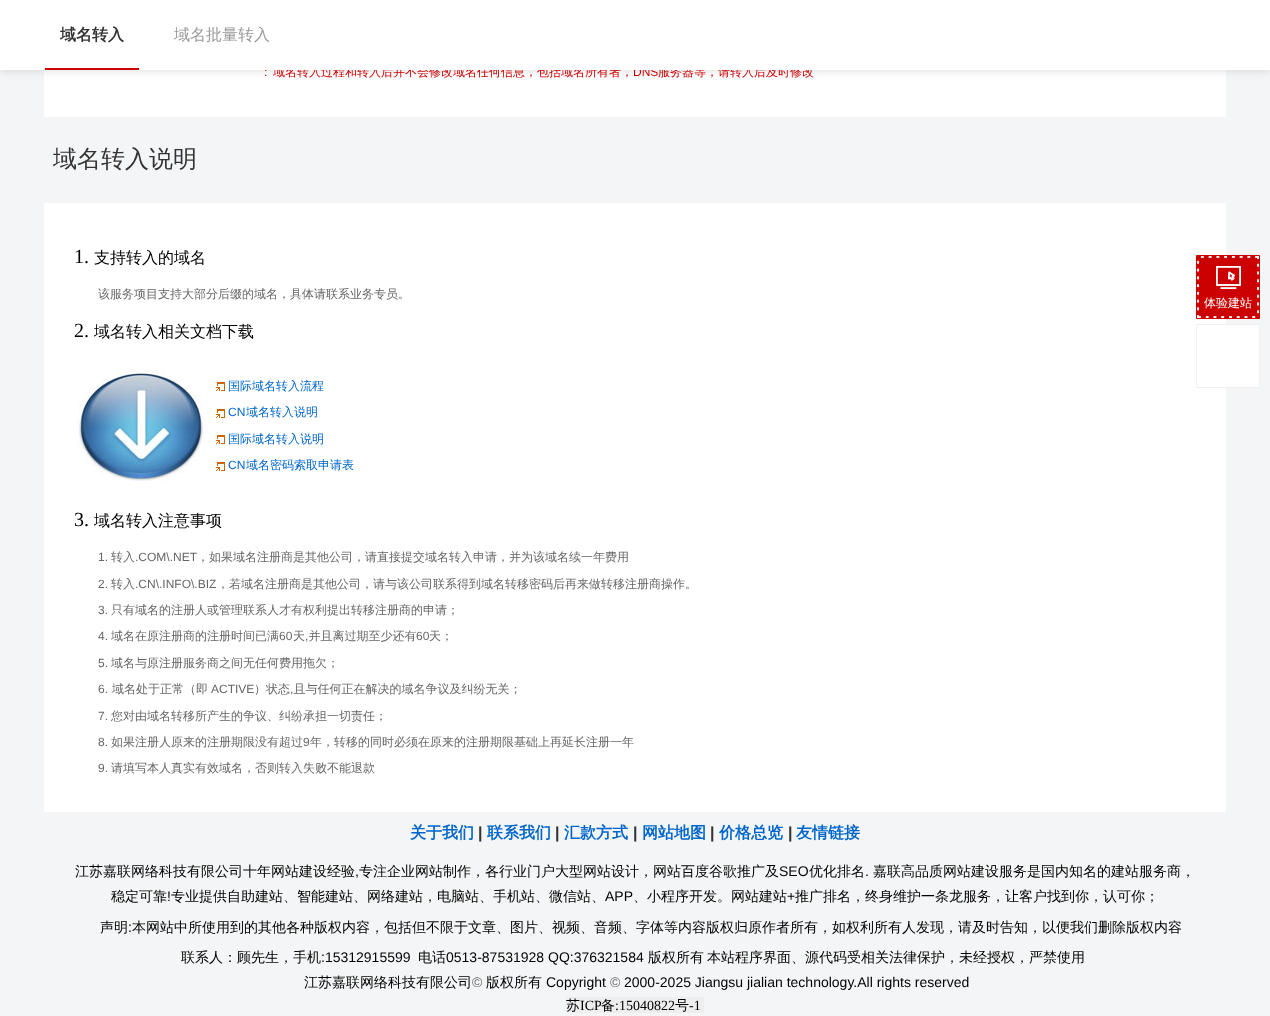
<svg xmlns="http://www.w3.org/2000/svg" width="1270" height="1016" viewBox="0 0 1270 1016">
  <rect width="100%" height="100%" fill="#f4f5f6"/>
  <path d="M44 70h1182v47H44z" fill="#fff"/>
  <path d="M0 0h1270v70H0z" fill="#00000026" filter="blur(5px)"/>
  <path d="M44 203h1182v609H44z" fill="#fff"/>
  <image x="77" y="370" width="128" height="112" href="img/1.png"/>
  <image x="216" y="382" width="9" height="9" href="img/2.png"/>
  <image x="216" y="409" width="9" height="9" href="img/2.png"/>
  <image x="216" y="435" width="9" height="9" href="img/2.png"/>
  <image x="216" y="462" width="9" height="9" href="img/2.png"/>
  <path d="M1197 256h62v62H1197z" fill="#c00"/>
  <image x="1197" y="256" width="62" height="62" href="img/3.png"/>
  <path d="M1196.5 255.5h63v63H1196.5z" fill="none" stroke="#c00"/>
  <image x="1216" y="266" width="25" height="23" href="img/4.png"/>
  <path d="M1226 325h33v62H1226z" fill="#fff"/>
  <path d="M1196.5 324.5h63v63H1196.5z" fill="none" stroke="#f0f0f0"/>
  <path d="M566 997h138v16H566z" fill="#eee"/>
  <text x="264" y="76" font-family="Liberation Sans" font-size="12" fill="#c00">:</text>
  <text x="273" y="76" font-family="WenQuanYi Zen Hei" font-size="12" font-weight="500" fill="#c00">域名转入过程和转入后并不会修改域名任何信息，包括域名所有者，</text>
  <text x="633" y="76" font-family="Liberation Sans" font-size="12" fill="#c00">DNS</text>
  <text x="658" y="76" font-family="WenQuanYi Zen Hei" font-size="12" font-weight="500" fill="#c00">服务器等，请转入后及时修改</text>
  <path d="M0 0h1270v70H0z" fill="#fff"/>
  <text x="174" y="40" font-family="WenQuanYi Zen Hei" font-size="16" font-weight="500" fill="#999">域名批量转入</text>
  <text x="60" y="40" font-family="WenQuanYi Zen Hei" font-size="16" font-weight="bold" fill="#333">域名转入</text>
  <path d="M45 68h94v2H45z" fill="#c00"/>
  <text x="53" y="167" font-family="WenQuanYi Zen Hei" font-size="24" font-weight="500" fill="#333">域名转入说明</text>
  <text x="74" y="263" font-family="Liberation Serif" font-size="20" fill="#000">1.</text>
  <text x="94" y="263" font-family="WenQuanYi Zen Hei" font-size="16" font-weight="500" fill="#000">支持转入的域名</text>
  <text x="98" y="298" font-family="WenQuanYi Zen Hei" font-size="12" font-weight="500" fill="#666">该服务项目支持大部分后缀的域名，具体请联系业务专员。</text>
  <text x="74" y="337" font-family="Liberation Serif" font-size="20" fill="#000">2.</text>
  <text x="94" y="337" font-family="WenQuanYi Zen Hei" font-size="16" font-weight="500" fill="#000">域名转入相关文档下载</text>
  <text x="228" y="390" font-family="WenQuanYi Zen Hei" font-size="12" font-weight="500" fill="#06c">国际域名转入流程</text>
  <text x="228" y="416" font-family="Liberation Sans" font-size="12" fill="#06c">CN</text>
  <g font-family="WenQuanYi Zen Hei" font-size="12" font-weight="500" fill="#06c">
    <text x="246" y="416">域名转入说明</text>
    <text x="228" y="443">国际域名转入说明</text>
  </g>
  <text x="228" y="469" font-family="Liberation Sans" font-size="12" fill="#06c">CN</text>
  <text x="246" y="469" font-family="WenQuanYi Zen Hei" font-size="12" font-weight="500" fill="#06c">域名密码索取申请表</text>
  <text x="74" y="526" font-family="Liberation Serif" font-size="20" fill="#000">3.</text>
  <text x="94" y="526" font-family="WenQuanYi Zen Hei" font-size="16" font-weight="500" fill="#000">域名转入注意事项</text>
  <text x="98" y="561" font-family="Liberation Sans" font-size="12" fill="#666">1.</text>
  <text x="111" y="561" font-family="WenQuanYi Zen Hei" font-size="12" font-weight="500" fill="#666">转入</text>
  <text x="135" y="561" font-family="Liberation Sans" font-size="12" fill="#666">.COM\.NET</text>
  <text x="197" y="561" font-family="WenQuanYi Zen Hei" font-size="12" font-weight="500" fill="#666">，如果域名注册商是其他公司，请直接提交域名转入申请，并为该域名续一年费用</text>
  <text x="98" y="588" font-family="Liberation Sans" font-size="12" fill="#666">2.</text>
  <text x="111" y="588" font-family="WenQuanYi Zen Hei" font-size="12" font-weight="500" fill="#666">转入</text>
  <text x="135" y="588" font-family="Liberation Sans" font-size="12" fill="#666">.CN\.INFO\.BIZ</text>
  <text x="217" y="588" font-family="WenQuanYi Zen Hei" font-size="12" font-weight="500" fill="#666">，若域名注册商是其他公司，请与该公司联系得到域名转移密码后再来做转移注册商操作。</text>
  <text x="98" y="614" font-family="Liberation Sans" font-size="12" fill="#666">3.</text>
  <text x="111" y="614" font-family="WenQuanYi Zen Hei" font-size="12" font-weight="500" fill="#666">只有域名的注册人或管理联系人才有权利提出转移注册商的申请；</text>
  <text x="98" y="640" font-family="Liberation Sans" font-size="12" fill="#666">4.</text>
  <text x="111" y="640" font-family="WenQuanYi Zen Hei" font-size="12" font-weight="500" fill="#666">域名在原注册商的注册时间已满</text>
  <text x="279" y="640" font-family="Liberation Sans" font-size="12" fill="#666">60</text>
  <text x="293" y="640" font-family="WenQuanYi Zen Hei" font-size="12" font-weight="500" fill="#666">天 并且离过期至少还有</text>
  <text x="416" y="640" font-family="Liberation Sans" font-size="12" fill="#666">60</text>
  <text x="429" y="640" font-family="WenQuanYi Zen Hei" font-size="12" font-weight="500" fill="#666">天；</text>
  <g font-family="Liberation Sans" font-size="12" fill="#666">
    <text x="305" y="640">,</text>
    <text x="98" y="667">5.</text>
  </g>
  <text x="111" y="667" font-family="WenQuanYi Zen Hei" font-size="12" font-weight="500" fill="#666">域名与原注册服务商之间无任何费用拖欠；</text>
  <text x="98" y="693" font-family="Liberation Sans" font-size="12" fill="#666">6.</text>
  <text x="112" y="693" font-family="WenQuanYi Zen Hei" font-size="12" font-weight="500" fill="#666">域名处于正常（即</text>
  <text x="211" y="693" font-family="Liberation Sans" font-size="12" fill="#666">ACTIVE</text>
  <text x="254" y="693" font-family="WenQuanYi Zen Hei" font-size="12" font-weight="500" fill="#666">）状态 且与任何正在解决的域名争议及纠纷无关；</text>
  <g font-family="Liberation Sans" font-size="12" fill="#666">
    <text x="290" y="693">,</text>
    <text x="98" y="720">7.</text>
  </g>
  <text x="111" y="720" font-family="WenQuanYi Zen Hei" font-size="12" font-weight="500" fill="#666">您对由域名转移所产生的争议、纠纷承担一切责任；</text>
  <text x="98" y="746" font-family="Liberation Sans" font-size="12" fill="#666">8.</text>
  <text x="111" y="746" font-family="WenQuanYi Zen Hei" font-size="12" font-weight="500" fill="#666">如果注册人原来的注册期限没有超过</text>
  <text x="303" y="746" font-family="Liberation Sans" font-size="12" fill="#666">9</text>
  <text x="310" y="746" font-family="WenQuanYi Zen Hei" font-size="12" font-weight="500" fill="#666">年，转移的同时必须在原来的注册期限基础上再延长注册一年</text>
  <text x="98" y="772" font-family="Liberation Sans" font-size="12" fill="#666">9.</text>
  <text x="111" y="772" font-family="WenQuanYi Zen Hei" font-size="12" font-weight="500" fill="#666">请填写本人真实有效域名，否则转入失败不能退款</text>
  <text x="1204" y="307" font-family="WenQuanYi Zen Hei" font-size="12" font-weight="500" fill="#fff">体验建站</text>
  <text x="410" y="838" font-family="WenQuanYi Zen Hei" font-size="16" font-weight="bold" fill="#06c">关于我们</text>
  <text x="478" y="838" font-family="Liberation Sans" font-size="16" font-weight="bold" fill="#333">|</text>
  <text x="487" y="838" font-family="WenQuanYi Zen Hei" font-size="16" font-weight="bold" fill="#06c">联系我们</text>
  <text x="555" y="838" font-family="Liberation Sans" font-size="16" font-weight="bold" fill="#333">|</text>
  <text x="564" y="838" font-family="WenQuanYi Zen Hei" font-size="16" font-weight="bold" fill="#06c">汇款方式</text>
  <text x="633" y="838" font-family="Liberation Sans" font-size="16" font-weight="bold" fill="#333">|</text>
  <text x="642" y="838" font-family="WenQuanYi Zen Hei" font-size="16" font-weight="bold" fill="#06c">网站地图</text>
  <text x="710" y="838" font-family="Liberation Sans" font-size="16" font-weight="bold" fill="#333">|</text>
  <text x="719" y="838" font-family="WenQuanYi Zen Hei" font-size="16" font-weight="bold" fill="#06c">价格总览</text>
  <text x="788" y="838" font-family="Liberation Sans" font-size="16" font-weight="bold" fill="#333">|</text>
  <text x="796" y="838" font-family="WenQuanYi Zen Hei" font-size="16" font-weight="bold" fill="#06c">友情链接</text>
  <text x="75" y="876" font-family="WenQuanYi Zen Hei" font-size="14" font-weight="500" fill="#000">江苏嘉联网络科技有限公司十年网站建设经验</text>
  <text x="355" y="876" font-family="Liberation Sans" font-size="14" fill="#000">,</text>
  <text x="359" y="876" font-family="WenQuanYi Zen Hei" font-size="14" font-weight="500" fill="#000">专注企业网站制作，各行业门户大型网站设计，网站百度谷歌推广及</text>
  <text x="779" y="876" font-family="Liberation Sans" font-size="14" fill="#000">SEO</text>
  <text x="809" y="876" font-family="WenQuanYi Zen Hei" font-size="14" font-weight="500" fill="#000">优化排名</text>
  <text x="865" y="876" font-family="Liberation Sans" font-size="14" fill="#000">.</text>
  <g font-family="WenQuanYi Zen Hei" font-size="14" font-weight="500" fill="#000">
    <text x="873" y="876">嘉联高品质网站建设服务是国内知名的建站服务商，</text>
    <text x="111" y="901">稳定可靠</text>
  </g>
  <text x="167" y="901" font-family="Liberation Sans" font-size="14" fill="#000">!</text>
  <text x="171" y="901" font-family="WenQuanYi Zen Hei" font-size="14" font-weight="500" fill="#000">专业提供自助建站、智能建站、网络建站，电脑站、手机站、微信站、</text>
  <text x="605" y="901" font-family="Liberation Sans" font-size="14" fill="#000">APP</text>
  <text x="633" y="901" font-family="WenQuanYi Zen Hei" font-size="14" font-weight="500" fill="#000">、小程序开发。网站建站</text>
  <text x="787" y="901" font-family="Liberation Sans" font-size="14" fill="#000">+</text>
  <g font-family="WenQuanYi Zen Hei" font-size="14" font-weight="500" fill="#000">
    <text x="795" y="901">推广排名，终身维护一条龙服务，让客户找到你，认可你；</text>
    <text x="100" y="932">声明</text>
  </g>
  <text x="128" y="932" font-family="Liberation Sans" font-size="14" fill="#000">:</text>
  <g font-family="WenQuanYi Zen Hei" font-size="14" font-weight="500" fill="#000">
    <text x="132" y="932">本网站中所使用到的其他各种版权内容，包括但不限于文章、图片、视频、音频、字体等内容版权归原作者所有，如权利所有人发现，请及时告知，以便我们删除版权内容</text>
    <text x="181" y="962">联系人：顾先生，手机</text>
  </g>
  <text x="321" y="962" font-family="Liberation Sans" font-size="14" fill="#000">:15312915599</text>
  <text x="418" y="962" font-family="WenQuanYi Zen Hei" font-size="14" font-weight="500" fill="#000">电话</text>
  <text x="446" y="962" font-family="Liberation Sans" font-size="14" fill="#000">0513-87531928 QQ:376321584</text>
  <g font-family="WenQuanYi Zen Hei" font-size="14" font-weight="500" fill="#000">
    <text x="648" y="962">版权所有</text>
    <text x="707" y="962">本站程序界面、源代码受相关法律保护，未经授权，严禁使用</text>
    <text x="304" y="987">江苏嘉联网络科技有限公司</text>
  </g>
  <text x="472" y="987" font-family="Liberation Sans" font-size="14" fill="#666">©</text>
  <text x="486" y="987" font-family="WenQuanYi Zen Hei" font-size="14" font-weight="500" fill="#000">版权所有</text>
  <text x="546" y="987" font-family="Liberation Sans" font-size="14" fill="#000">Copyright</text>
  <text x="610" y="987" font-family="Liberation Sans" font-size="14" fill="#666">©</text>
  <text x="624" y="987" font-family="Liberation Sans" font-size="14" fill="#000">2000-2025 Jiangsu jialian technology.All rights reserved</text>
  <text x="566" y="1010" font-family="WenQuanYi Zen Hei" font-size="14" font-weight="500" fill="#000">苏</text>
  <text x="580" y="1010" font-family="Liberation Serif" font-size="14" fill="#000">ICP</text>
  <text x="601" y="1010" font-family="WenQuanYi Zen Hei" font-size="14" font-weight="500" fill="#000">备</text>
  <text x="615" y="1010" font-family="Liberation Serif" font-size="14" fill="#000">:15040822</text>
  <text x="675" y="1010" font-family="WenQuanYi Zen Hei" font-size="14" font-weight="500" fill="#000">号</text>
  <text x="689" y="1010" font-family="Liberation Serif" font-size="14" fill="#000">-1</text>
</svg>
